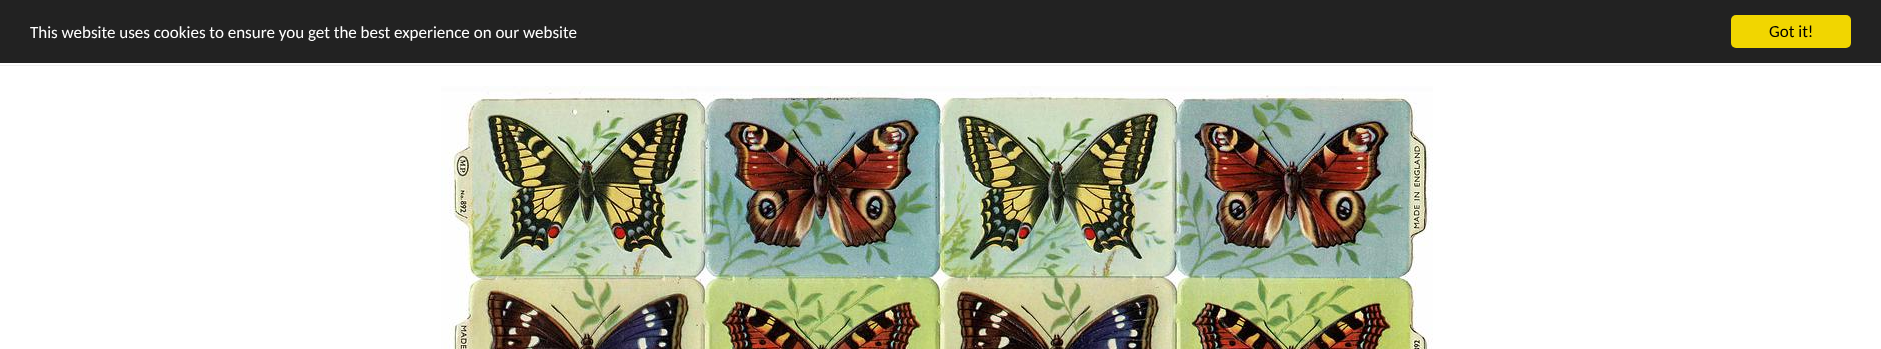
<svg xmlns="http://www.w3.org/2000/svg" width="1881" height="349" viewBox="0 0 1881 349">
  <rect width="100%" height="100%" fill="#fff"/>
  <path d="M0 0h1881v63H0z" fill="#222"/>
  <rect x="1731" y="15" width="120" height="33" rx="5" fill="#f1d600"/>
  <path d="M0 65h1881v1H0z" fill="#eee"/>
  <image x="441" y="86" width="992" height="263" href="img/1.png"/>
  <text x="30" y="38" font-family="Carlito" font-size="17" fill="#fff">This website uses cookies to ensure you get the best experience on our website</text>
  <text x="1769" y="37" font-family="Carlito" font-size="17" fill="#000">Got it!</text>
</svg>
